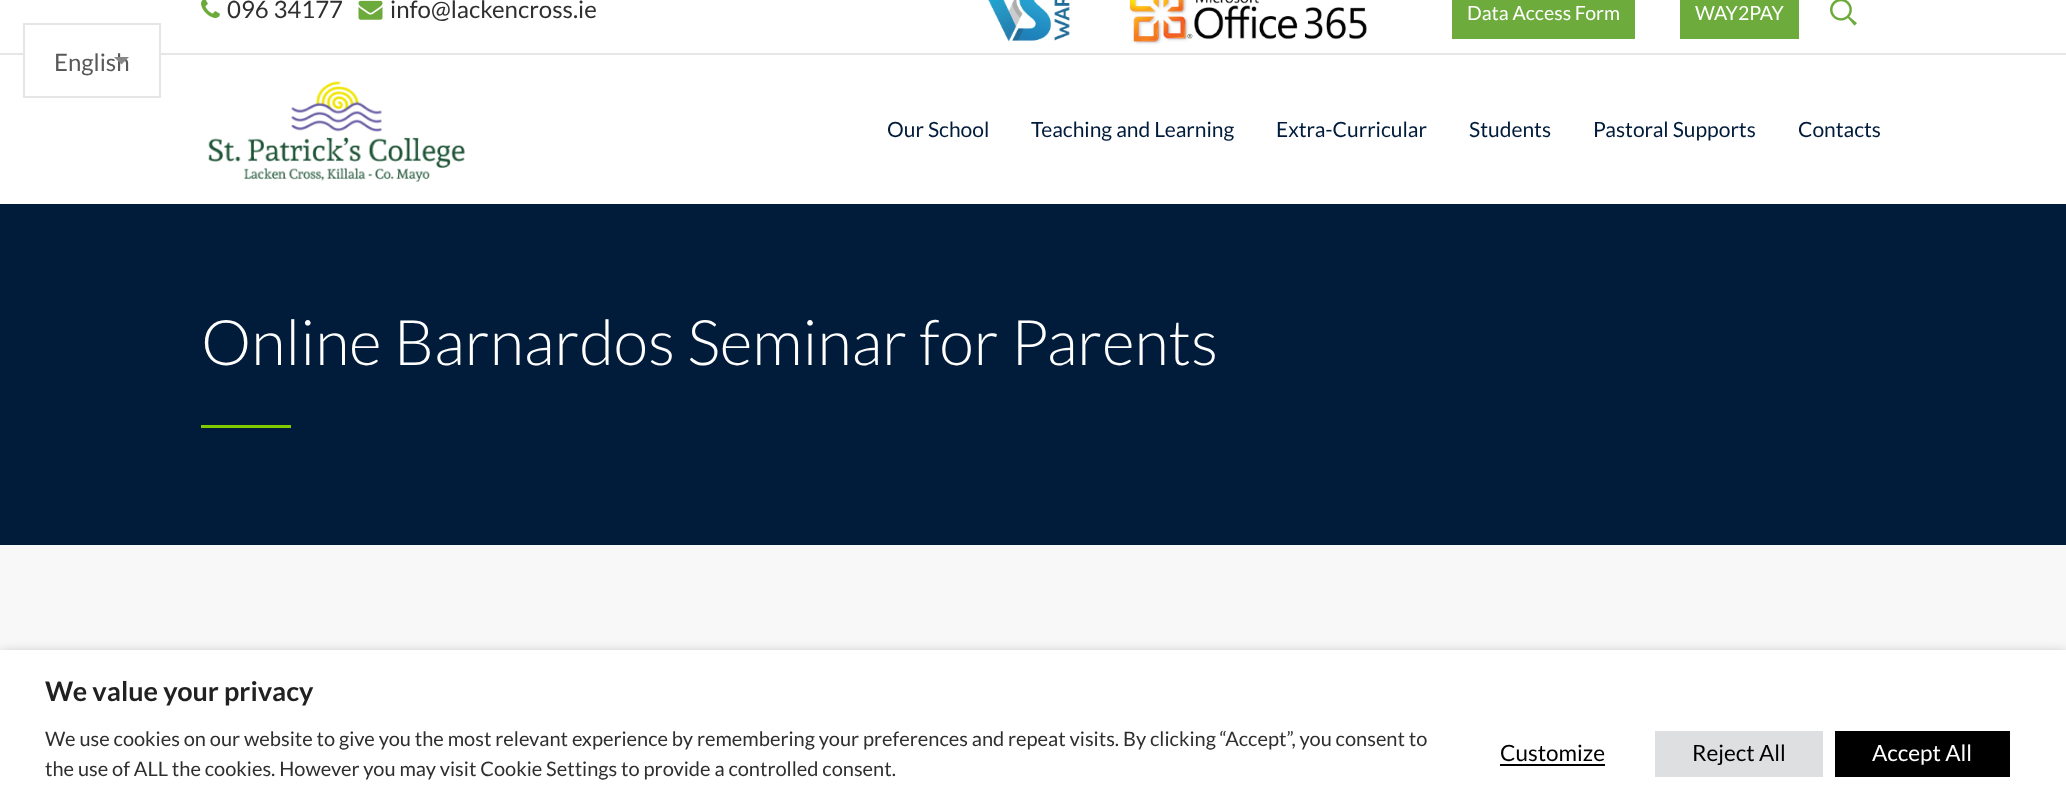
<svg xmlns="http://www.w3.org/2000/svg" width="2066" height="805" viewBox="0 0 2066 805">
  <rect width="100%" height="100%" fill="#f8f8f8"/>
  <path d="M0 53h2066v2H0z" fill="#e6e6e6"/>
  <path d="M25 53h134v2H25z" fill="#fff"/>
  <path d="M0 0h2066v53H0z" fill="#fff"/>
  <path d="M0 55h2066v149H0z" fill="#fff"/>
  <path d="M24 24h136v73H24z" fill="none" stroke="#e6e6e6" stroke-width="2"/>
  <image x="201" y="0" width="19" height="18" href="img/1.png"/>
  <image x="358" y="0" width="25" height="20" href="img/2.png"/>
  <image x="988" y="0" width="82" height="42" href="img/3.png"/>
  <image x="1129" y="0" width="238" height="45" href="img/4.png"/>
  <path d="M1452 0h183v39H1452z" fill="#6dab3c"/>
  <path d="M1680 0h119v39H1680z" fill="#6dab3c"/>
  <image x="1830" y="0" width="27" height="26" href="img/5.png"/>
  <image x="208" y="81" width="257" height="101" href="img/6.png"/>
  <path d="M0 204h2066v341H0z" fill="#011b3a"/>
  <path d="M201 425h90v3H201z" fill="#81ca00"/>
  <path d="M0 657h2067v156H0z" fill="#00000080" filter="blur(7.5px)"/>
  <path d="M0 650h2066v155H0z" fill="#fff"/>
  <path d="M1500 764h105v2H1500z" fill="#000"/>
  <path d="M1655 731h168v46H1655z" fill="#dedfe0"/>
  <path d="M1835 731h175v46H1835z" fill="#000"/>
  <text x="54" y="71" font-family="Lato" font-size="24" fill="#595959">English</text>
  <path d="M114 57H129L121.5 64.5Z" fill="#888"/>
  <g font-family="Lato" font-size="24" fill="#2f2f2f">
    <text x="227" y="18">096 34177</text>
    <text x="390" y="18">info@lackencross.ie</text>
  </g>
  <g font-family="Lato" font-size="19.5" fill="#fff">
    <text x="1467" y="20">Data Access Form</text>
    <text x="1695" y="20">WAY2PAY</text>
  </g>
  <g font-family="Lato" font-size="21" fill="#011b3a">
    <text x="887" y="137">Our School</text>
    <text x="1031" y="137">Teaching and Learning</text>
    <text x="1276" y="137">Extra-Curricular</text>
    <text x="1469" y="137">Students</text>
    <text x="1593" y="137">Pastoral Supports</text>
    <text x="1798" y="137">Contacts</text>
  </g>
  <text x="201" y="365" font-family="Lato" font-size="63" font-weight="300" fill="#fff">Online Barnardos Seminar for Parents</text>
  <text x="45" y="701" font-family="Lato" font-size="27" font-weight="bold" fill="#212121">We value your privacy</text>
  <g font-family="Lato" font-size="20" fill="#2f2f2f">
    <text x="45" y="746">We use cookies on our website to give you the most relevant experience by remembering your preferences and repeat visits. By clicking “Accept”, you consent to</text>
    <text x="45" y="776">the use of ALL the cookies. However you may visit Cookie Settings to provide a controlled consent.</text>
  </g>
  <g font-family="Lato" font-size="22.5" fill="#000">
    <text x="1500" y="761">Customize</text>
    <text x="1692" y="761">Reject All</text>
  </g>
  <text x="1872" y="761" font-family="Lato" font-size="22.5" fill="#fff">Accept All</text>
</svg>
